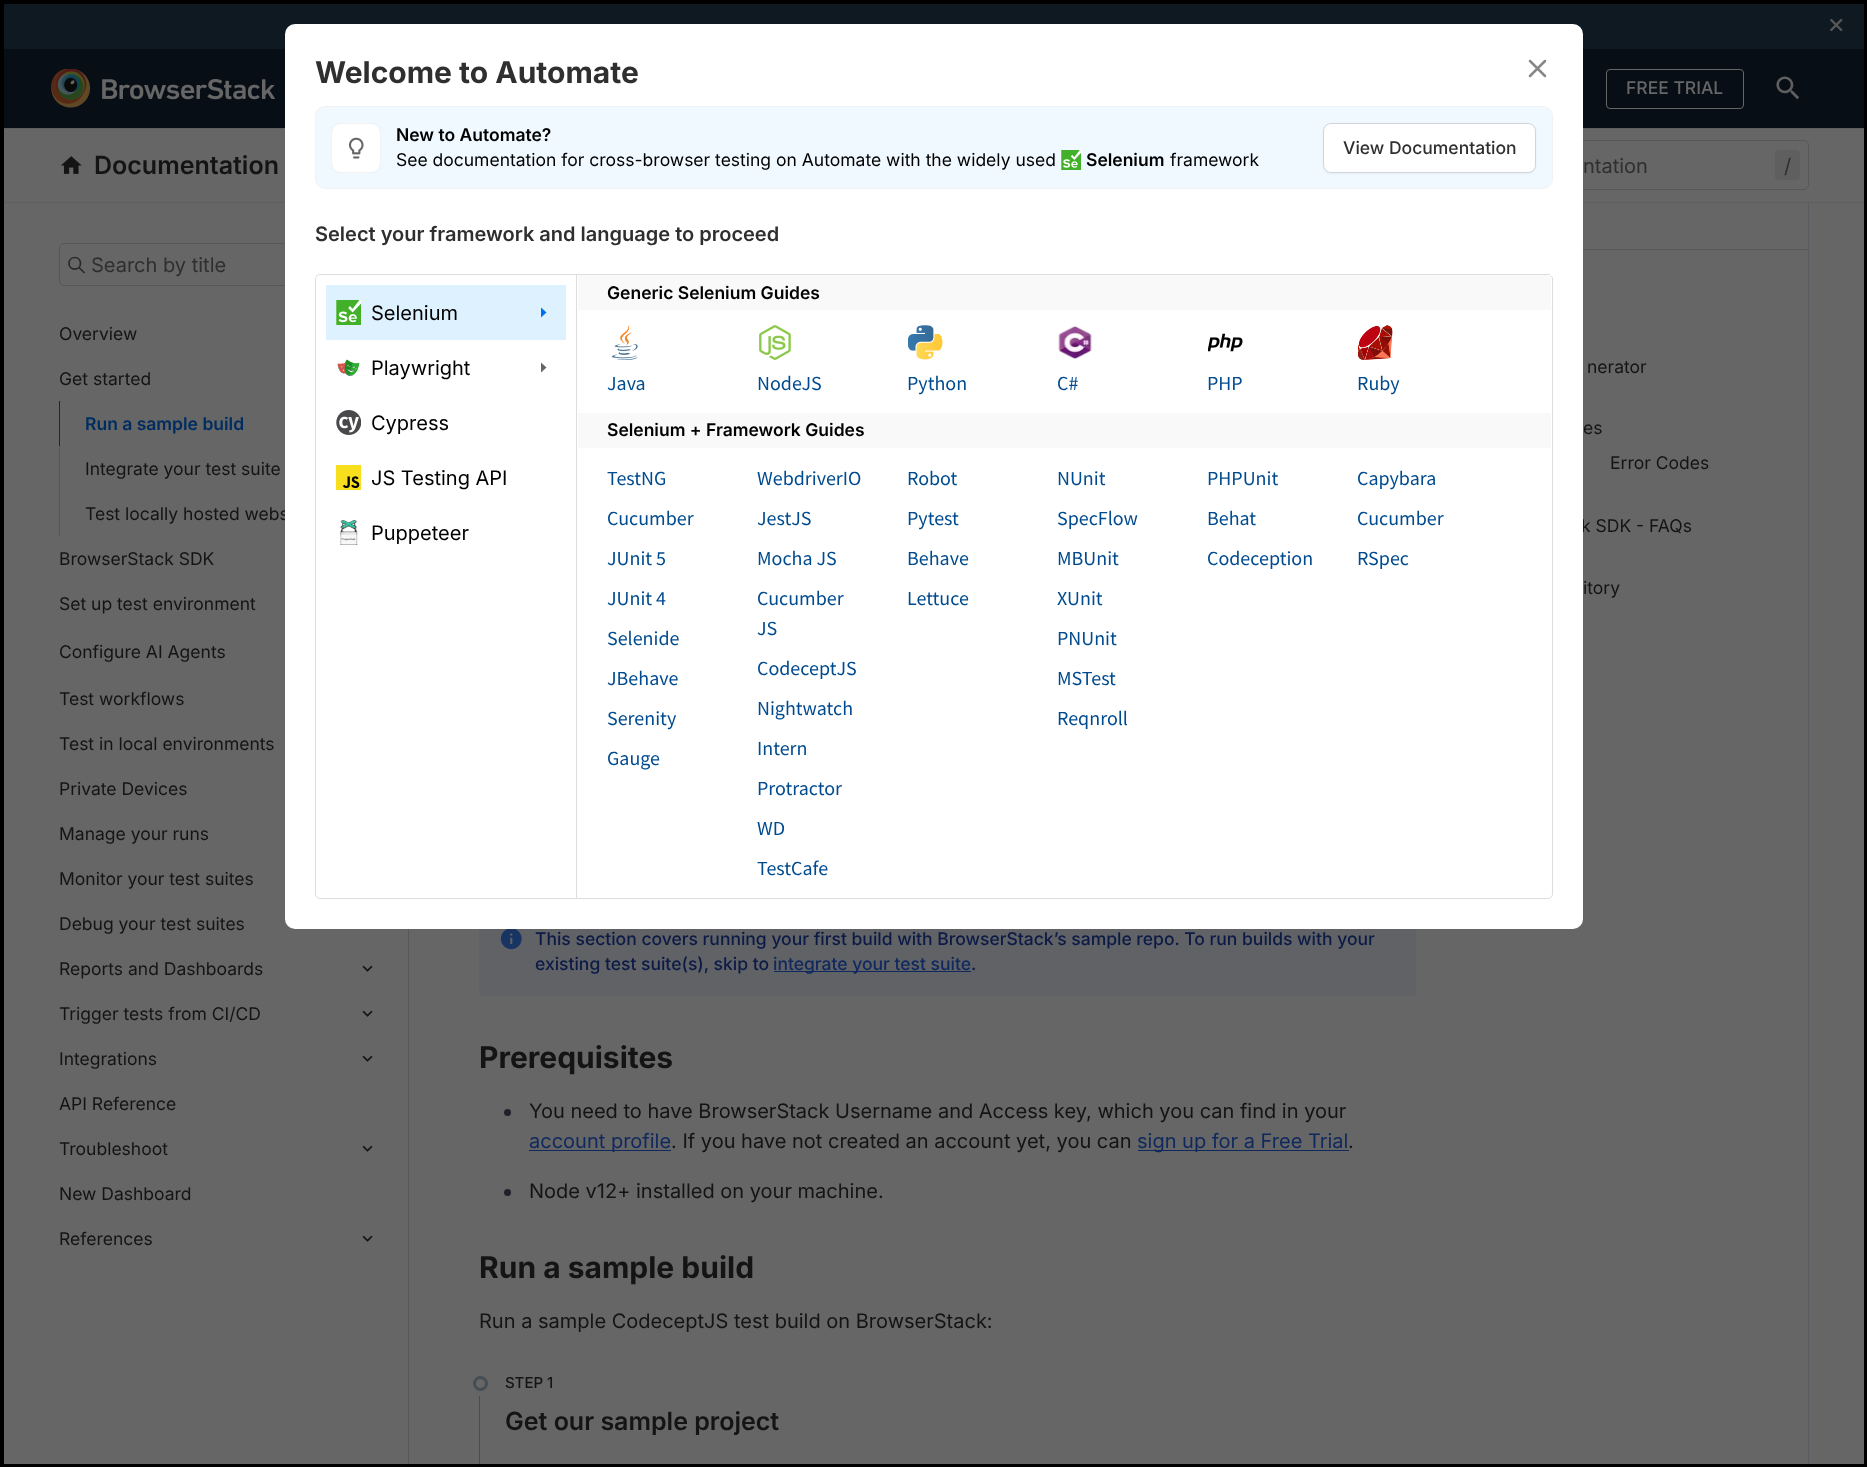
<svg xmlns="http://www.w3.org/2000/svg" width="1867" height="1467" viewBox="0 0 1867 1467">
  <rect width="100%" height="100%" fill="#666"/>
  <path d="M4 49h1860v79H4z" fill="#080e15"/>
  <path d="M4 4h1860v45H4z" fill="#0e1922"/>
  <image x="1830" y="19" width="13" height="12" href="img/14.png"/>
  <image x="51" y="69" width="225" height="39" href="img/15.png"/>
  <rect x="1606.5" y="69.5" width="137" height="39" rx="3.5" fill="none" stroke="#666"/>
  <image x="1776" y="76" width="24" height="24" href="img/16.png"/>
  <path d="M0.5 128.5h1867v74H0.5z" fill="none" stroke="#5f5f5f"/>
  <image x="61" y="156" width="21" height="18" href="img/17.png"/>
  <rect x="1309.5" y="140.5" width="499" height="49" rx="4.5" fill="none" stroke="#585858"/>
  <rect x="1775" y="150" width="25" height="30" rx="4" fill="#5f5f5f"/>
  <path d="M408 929h1v538H408z" fill="#585858"/>
  <path d="M84 272.5L79 267.5M80.5 263.5C80.5 271 69 271 69 263.5C69 255.5 80.5 255.5 80.5 263.5Z" fill="none" stroke="#292929" stroke-width="1.7" stroke-linecap="round" stroke-linejoin="round"/>
  <rect x="59.5" y="243.5" width="323" height="42" rx="4.5" fill="none" stroke="#585858"/>
  <path d="M59 401h1v45H59z" fill="#002d60"/>
  <path d="M59 446h1v90H59z" fill="#585858"/>
  <image x="362" y="965" width="11" height="7" href="img/18.png"/>
  <image x="362" y="1010" width="11" height="7" href="img/18.png"/>
  <image x="362" y="1055" width="11" height="7" href="img/18.png"/>
  <image x="362" y="1145" width="11" height="7" href="img/18.png"/>
  <image x="362" y="1235" width="11" height="7" href="img/18.png"/>
  <path d="M1583 249h226v1H1583z" fill="#585858"/>
  <rect x="479" y="906" width="937" height="90" rx="4" fill="#606266"/>
  <image x="500" y="929" width="22" height="21" href="img/19.png"/>
  <path d="M774 971h197v1H774z" fill="#0f285e"/>
  <circle cx="507.5" cy="1112.5" r="3.5" fill="#1e2228"/>
  <path d="M529 1150h142v1H529z" fill="#0f285e"/>
  <path d="M1138 1150h211v1H1138z" fill="#0f285e"/>
  <circle cx="507.5" cy="1192.5" r="3.5" fill="#1e2228"/>
  <path d="M479 1376h1v91H479z" fill="#464e55"/>
  <circle cx="480.5" cy="1383.5" r="10" fill="none" stroke="#666" stroke-width="5"/>
  <circle cx="480.5" cy="1383.5" r="6" fill="#666" stroke="#464e55" stroke-width="3"/>
  <path d="M1808 203h1v1264H1808z" fill="#585c60"/>
  <path d="M2 2h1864v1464H2z" fill="none" stroke="#000" stroke-width="4"/>
  <text x="1626" y="94" font-family="Inter" font-size="17.5" font-weight="500" fill="#666">FREE TRIAL</text>
  <text x="94" y="174" font-family="Inter" font-size="25" font-weight="600" fill="#141414">Documentation</text>
  <g font-family="Inter" font-size="20" fill="#2f2f2f">
    <text x="1583" y="173">ntation</text>
    <text x="1784" y="173">/</text>
    <text x="91" y="272">Search by title</text>
  </g>
  <g font-family="Inter" font-size="17.5" fill="#141414">
    <text x="59" y="340">Overview</text>
    <text x="59" y="385">Get started</text>
  </g>
  <text x="85" y="430" font-family="Inter" font-size="17.5" font-weight="600" fill="#002d60">Run a sample build</text>
  <g font-family="Inter" font-size="17.5" fill="#141414">
    <text x="85" y="475">Integrate your test suite</text>
    <text x="85" y="520">Test locally hosted webs</text>
    <text x="59" y="565">BrowserStack SDK</text>
    <text x="59" y="610">Set up test environment</text>
    <text x="59" y="658">Configure AI Agents</text>
    <text x="59" y="705">Test workflows</text>
    <text x="59" y="750">Test in local environments</text>
    <text x="59" y="795">Private Devices</text>
    <text x="59" y="840">Manage your runs</text>
    <text x="59" y="885">Monitor your test suites</text>
    <text x="59" y="930">Debug your test suites</text>
    <text x="59" y="975">Reports and Dashboards</text>
    <text x="59" y="1020">Trigger tests from CI/CD</text>
    <text x="59" y="1065">Integrations</text>
    <text x="59" y="1110">API Reference</text>
    <text x="59" y="1155">Troubleshoot</text>
    <text x="59" y="1200">New Dashboard</text>
    <text x="59" y="1245">References</text>
    <text x="1587" y="373">nerator</text>
    <text x="1583" y="434">es</text>
    <text x="1610" y="469">Error Codes</text>
    <text x="1581" y="532">k SDK - FAQs</text>
  </g>
  <rect x="285" y="24" width="1298" height="905" rx="10" fill="#fff"/>
  <rect x="315.5" y="274.5" width="1237" height="624" rx="4.5" fill="none" stroke="#ddd"/>
  <path d="M541 372.5L546.5 367.5L541 362.5Z" fill="#666"/>
  <path d="M326 285h240v55H326z" fill="#ddf1ff"/>
  <path d="M541 317.5L546.5 312.5L541 307.5Z" fill="#0070f0"/>
  <g font-family="Source Sans Pro" font-size="20" fill="#004b8f">
    <text x="1357" y="565">RSpec</text>
    <text x="1357" y="525">Cucumber</text>
    <text x="1357" y="485">Capybara</text>
    <text x="1207" y="565">Codeception</text>
    <text x="1207" y="525">Behat</text>
    <text x="1207" y="485">PHPUnit</text>
    <text x="1057" y="725">Reqnroll</text>
    <text x="1057" y="685">MSTest</text>
    <text x="1057" y="645">PNUnit</text>
    <text x="1057" y="605">XUnit</text>
    <text x="1057" y="565">MBUnit</text>
    <text x="1057" y="525">SpecFlow</text>
    <text x="1057" y="485">NUnit</text>
    <text x="907" y="605">Lettuce</text>
    <text x="907" y="565">Behave</text>
    <text x="907" y="525">Pytest</text>
    <text x="907" y="485">Robot</text>
    <text x="757" y="875">TestCafe</text>
    <text x="757" y="835">WD</text>
    <text x="757" y="795">Protractor</text>
    <text x="757" y="755">Intern</text>
    <text x="757" y="715">Nightwatch</text>
    <text x="757" y="675">CodeceptJS</text>
    <text x="757" y="635">JS</text>
    <text x="757" y="605">Cucumber</text>
    <text x="757" y="565">Mocha JS</text>
    <text x="757" y="525">JestJS</text>
    <text x="757" y="485">WebdriverIO</text>
    <text x="607" y="765">Gauge</text>
    <text x="607" y="725">Serenity</text>
    <text x="607" y="685">JBehave</text>
    <text x="607" y="645">Selenide</text>
    <text x="607" y="605">JUnit 4</text>
    <text x="607" y="565">JUnit 5</text>
    <text x="607" y="525">Cucumber</text>
    <text x="607" y="485">TestNG</text>
  </g>
  <path d="M578 413h973v35H578z" fill="#f9f9f9"/>
  <text x="607" y="436" font-family="Inter" font-size="17.5" font-weight="600" fill="#000">Selenium + Framework Guides</text>
  <text x="1357" y="390" font-family="Source Sans Pro" font-size="20" fill="#004b8f">Ruby</text>
  <image x="1358" y="325" width="35" height="35" href="img/13.png"/>
  <text x="1207" y="390" font-family="Source Sans Pro" font-size="20" fill="#004b8f">PHP</text>
  <image x="1208" y="333" width="35" height="19" href="img/12.png"/>
  <text x="1057" y="390" font-family="Source Sans Pro" font-size="20" fill="#004b8f">C#</text>
  <image x="1058" y="326" width="34" height="33" href="img/11.png"/>
  <text x="907" y="390" font-family="Source Sans Pro" font-size="20" fill="#004b8f">Python</text>
  <image x="908" y="325" width="35" height="35" href="img/10.png"/>
  <text x="757" y="390" font-family="Source Sans Pro" font-size="20" fill="#004b8f">NodeJS</text>
  <image x="759" y="325" width="32" height="35" href="img/9.png"/>
  <text x="607" y="390" font-family="Source Sans Pro" font-size="20" fill="#004b8f">Java</text>
  <image x="611" y="325" width="27" height="35" href="img/8.png"/>
  <path d="M578 275h973v35H578z" fill="#f9f9f9"/>
  <text x="607" y="299" font-family="Inter" font-size="17.5" font-weight="600" fill="#000">Generic Selenium Guides</text>
  <text x="371" y="540" font-family="Inter" font-size="20" fill="#000">Puppeteer</text>
  <image x="340" y="520" width="18" height="25" href="img/7.png"/>
  <text x="371" y="485" font-family="Inter" font-size="20" fill="#000">JS Testing API</text>
  <image x="336" y="465" width="25" height="25" href="img/6.png"/>
  <text x="371" y="430" font-family="Inter" font-size="20" fill="#000">Cypress</text>
  <image x="336" y="410" width="25" height="25" href="img/5.png"/>
  <text x="371" y="375" font-family="Inter" font-size="20" fill="#000">Playwright</text>
  <image x="337" y="359" width="23" height="17" href="img/4.png"/>
  <text x="371" y="320" font-family="Inter" font-size="20" fill="#000">Selenium</text>
  <image x="336" y="300" width="25" height="25" href="img/3.png"/>
  <path d="M576 275h1v623H576z" fill="#ddd"/>
  <text x="315" y="241" font-family="Inter" font-size="20" font-weight="600" fill="#2f2f2f">Select your framework and language to proceed</text>
  <rect x="315.5" y="106.5" width="1237" height="82" rx="9.5" fill="#f0f9ff" stroke="#f2f2f2"/>
  <rect x="1323" y="124" width="213" height="50" rx="8" fill="#0000000d" filter="blur(1px)"/>
  <rect x="1323.5" y="123.5" width="212" height="49" rx="7.5" fill="#fff" stroke="#d1d5db"/>
  <text x="1343" y="154" font-family="Inter" font-size="17.5" font-weight="500" fill="#2f2f2f">View Documentation</text>
  <text x="1170" y="166" font-family="Inter" font-size="17.5" fill="#000">framework</text>
  <text x="1086" y="166" font-family="Inter" font-size="17.5" font-weight="600" fill="#000">Selenium</text>
  <image x="1061" y="150" width="20" height="20" href="img/2.png"/>
  <text x="396" y="166" font-family="Inter" font-size="17.5" fill="#000">See documentation for cross-browser testing on Automate with the widely used</text>
  <text x="396" y="141" font-family="Inter" font-size="17.5" font-weight="600" fill="#000">New to Automate?</text>
  <rect x="331.5" y="123.5" width="49" height="49" rx="9.5" fill="#fff" stroke="#f2f2f2"/>
  <image x="349" y="137" width="15" height="22" href="img/1.png"/>
  <path d="M1530 76L1545 61M1530 61L1545 76" fill="none" stroke="#888" stroke-width="2.5" stroke-linecap="round" stroke-linejoin="round"/>
  <text x="315" y="83" font-family="Inter" font-size="30" font-weight="bold" fill="#2f2f2f">Welcome to Automate</text>
  <text x="1583" y="594" font-family="Inter" font-size="17.5" fill="#141414">itory</text>
  <g font-family="Inter" font-size="17.5" font-weight="500" fill="#0c1a46">
    <text x="535" y="945">This section covers running your first build with BrowserStack’s sample repo. To run builds with your</text>
    <text x="535" y="970">existing test suite(s), skip to</text>
  </g>
  <text x="773" y="970" font-family="Inter" font-size="17.5" font-weight="500" fill="#0f285e">integrate your test suite</text>
  <text x="971" y="970" font-family="Inter" font-size="17.5" font-weight="500" fill="#0c1a46">.</text>
  <text x="479" y="1068" font-family="Inter" font-size="30" font-weight="bold" fill="#141414">Prerequisites</text>
  <text x="529" y="1118" font-family="Inter" font-size="20" fill="#141414">You need to have BrowserStack Username and Access key, which you can find in your</text>
  <text x="529" y="1148" font-family="Inter" font-size="20" fill="#0f285e">account profile</text>
  <text x="671" y="1148" font-family="Inter" font-size="20" fill="#141414">. If you have not created an account yet, you can</text>
  <text x="1137" y="1148" font-family="Inter" font-size="20" fill="#0f285e">sign up for a Free Trial</text>
  <g font-family="Inter" font-size="20" fill="#141414">
    <text x="1348" y="1148">.</text>
    <text x="529" y="1198">Node v12+ installed on your machine.</text>
  </g>
  <text x="479" y="1278" font-family="Inter" font-size="30" font-weight="bold" fill="#141414">Run a sample build</text>
  <text x="479" y="1328" font-family="Inter" font-size="20" fill="#141414">Run a sample CodeceptJS test build on BrowserStack:</text>
  <text x="505" y="1388" font-family="Inter" font-size="15" font-weight="500" fill="#141414">STEP 1</text>
  <text x="505" y="1430" font-family="Inter" font-size="25" font-weight="600" fill="#141414">Get our sample project</text>
</svg>
